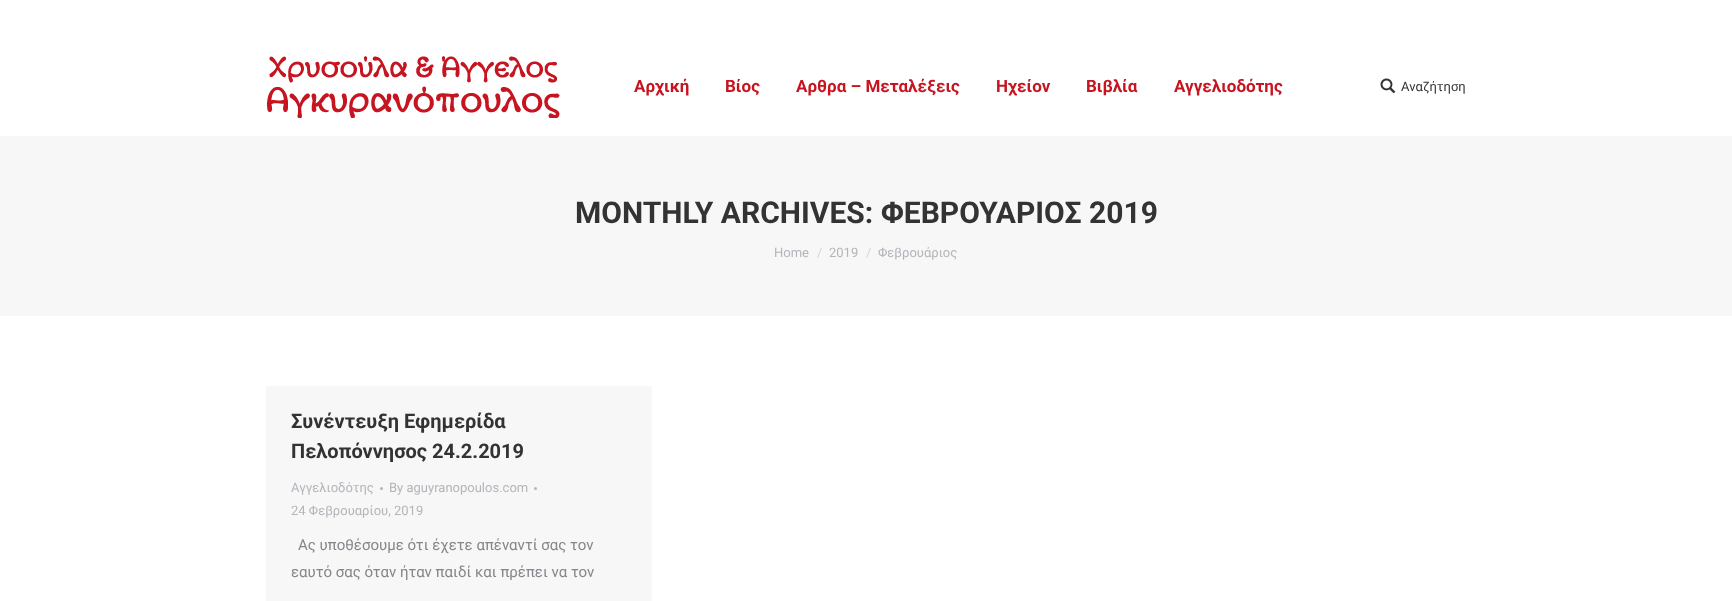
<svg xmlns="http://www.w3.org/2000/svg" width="1732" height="601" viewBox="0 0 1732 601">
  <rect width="100%" height="100%" fill="#fff"/>
  <image x="267" y="56" width="293" height="62" href="img/1.png"/>
  <image x="1380" y="78" width="16" height="16" href="img/2.png"/>
  <path d="M0 136h1732v180H0z" fill="#f7f7f7"/>
  <path d="M266 386h386v215H266z" fill="#f7f7f7"/>
  <circle cx="381.5" cy="488.5" r="1.5" fill="#b4b5bb"/>
  <circle cx="535.5" cy="488.5" r="1.5" fill="#b4b5bb"/>
  <g font-family="Roboto" font-size="17" font-weight="bold" fill="#c61521">
    <text x="634" y="92">Αρχική</text>
    <text x="725" y="92">Βίος</text>
    <text x="796" y="92">Αρθρα – Μεταλέξεις</text>
    <text x="996" y="92">Ηχείον</text>
    <text x="1086" y="92">Βιβλία</text>
    <text x="1174" y="92">Αγγελιοδότης</text>
  </g>
  <text x="1401" y="91" font-family="Roboto" font-size="13" fill="#333">Αναζήτηση</text>
  <text x="575" y="223" font-family="Roboto" font-size="30" font-weight="bold" fill="#333">MONTHLY ARCHIVES: ΦΕΒΡΟΥΑΡΙΟΣ 2019</text>
  <text x="774" y="257" font-family="Roboto" font-size="13" fill="#b4b5bb">Home</text>
  <text x="817" y="257" font-family="Roboto" font-size="13" fill="#d6d6d9">/</text>
  <text x="829" y="257" font-family="Roboto" font-size="13" fill="#b4b5bb">2019</text>
  <text x="866" y="257" font-family="Roboto" font-size="13" fill="#d6d6d9">/</text>
  <text x="878" y="257" font-family="Roboto" font-size="13" fill="#b4b5bb">Φεβρουάριος</text>
  <g font-family="Roboto" font-size="20" font-weight="bold" fill="#333">
    <text x="291" y="428">Συνέντευξη Εφημερίδα</text>
    <text x="291" y="458">Πελοπόννησος 24.2.2019</text>
  </g>
  <g font-family="Roboto" font-size="13" fill="#b4b5bb">
    <text x="291" y="492">Αγγελιοδότης</text>
    <text x="389" y="492">By aguyranopoulos.com</text>
    <text x="291" y="515">24 Φεβρουαρίου, 2019</text>
  </g>
  <g font-family="Roboto" font-size="15" fill="#85868c">
    <text x="298" y="550">Ας υποθέσουμε ότι έχετε απέναντί σας τον</text>
    <text x="291" y="577">εαυτό σας όταν ήταν παιδί και πρέπει να τον</text>
  </g>
</svg>
